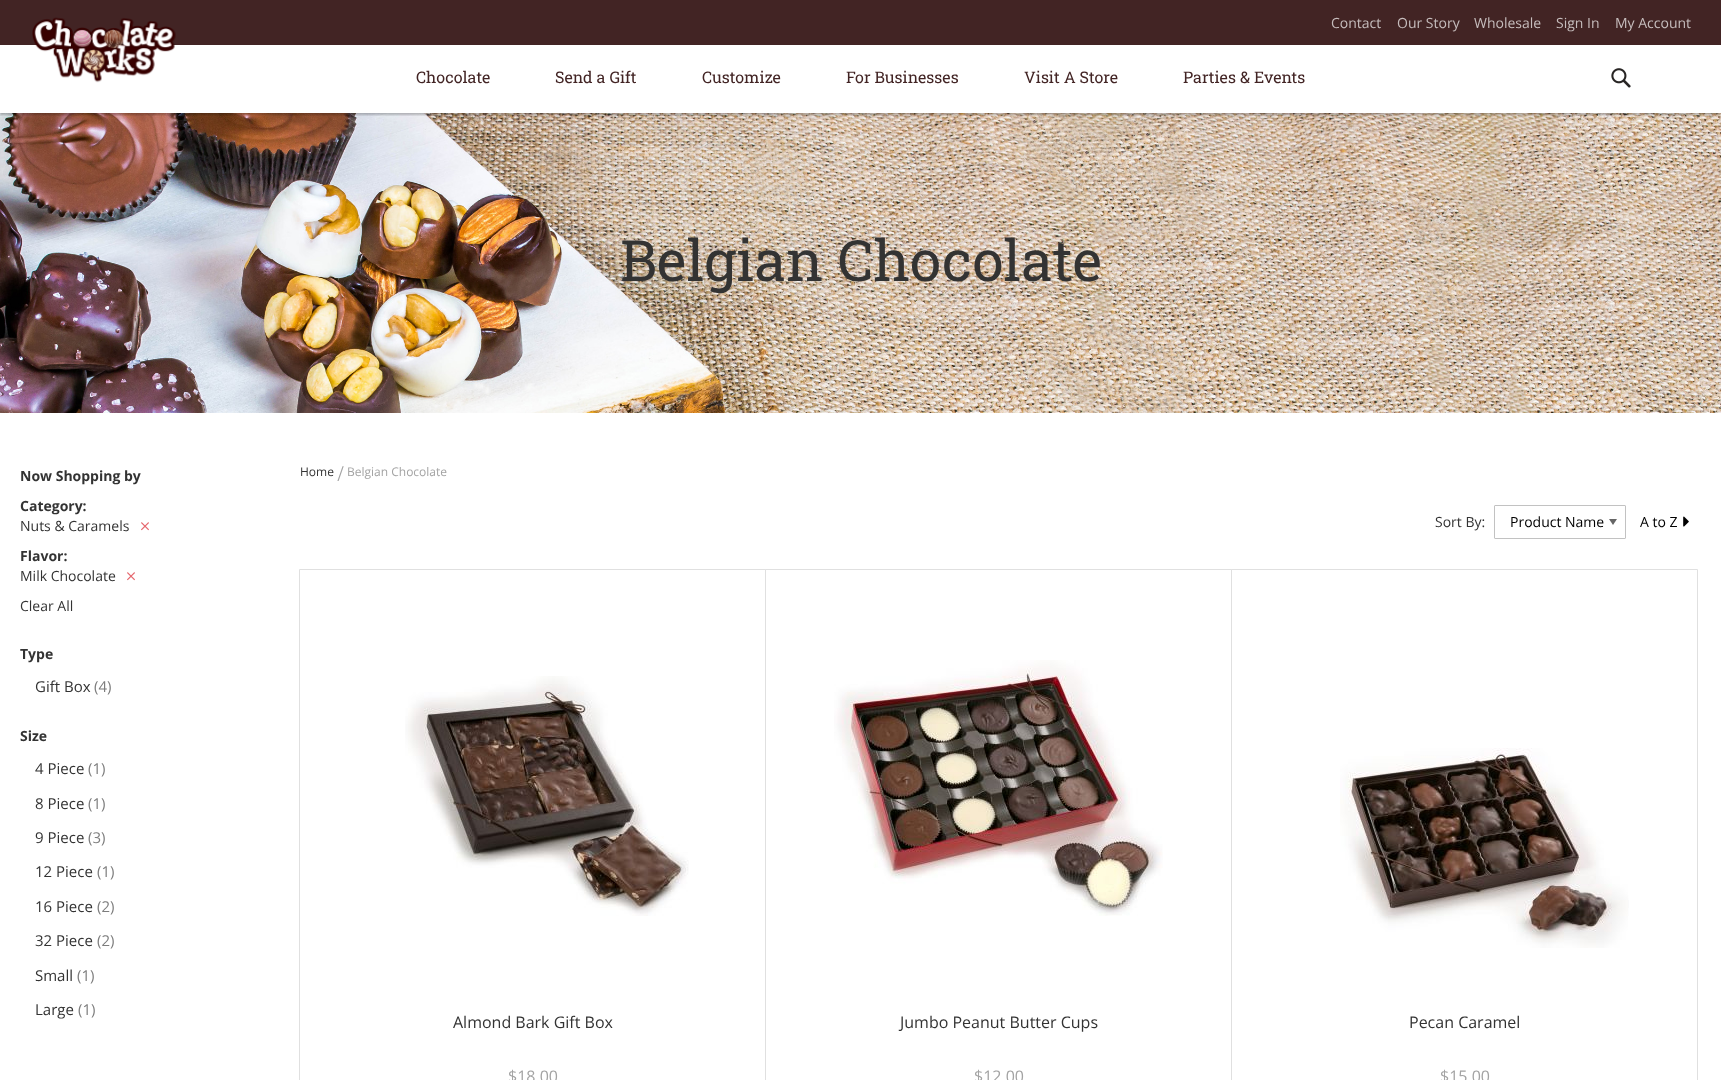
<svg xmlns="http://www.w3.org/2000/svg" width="1721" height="1080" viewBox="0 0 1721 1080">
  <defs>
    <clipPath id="clip1"><path d="M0 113h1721v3H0z"/></clipPath>
    <clipPath id="clip2"><path d="M337 463h7v18H337z"/></clipPath>
  </defs>
  <rect width="100%" height="100%" fill="#fff"/>
  <image x="0" y="113" width="1721" height="300" href="img/3.png"/>
  <g clip-path="url(#clip1)">
    <path d="M0 47h1721v68H0z" fill="#0000003d" filter="blur(1px)"/>
  </g>
  <path d="M0 0h1721v45H0z" fill="#422424"/>
  <image x="32" y="17" width="144" height="66" href="img/1.png"/>
  <image x="1611" y="68" width="20" height="20" href="img/2.png"/>
  <image x="141" y="522" width="8" height="9" href="img/4.png"/>
  <image x="127" y="572" width="8" height="9" href="img/4.png"/>
  <rect x="1494.5" y="505.5" width="131" height="33" rx="0.5" fill="none" stroke="#c2c2c2"/>
  <path d="M1609 519H1617L1613 525Z" fill="#666"/>
  <image x="1683" y="516" width="6" height="11" href="img/5.png"/>
  <image x="405" y="676" width="284" height="240" href="img/6.png"/>
  <path d="M299.5 569.5h466v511H299.5z" fill="none" stroke="#e0e0e0"/>
  <image x="834" y="660" width="329" height="256" href="img/7.png"/>
  <path d="M765.5 569.5h466v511H765.5z" fill="none" stroke="#e0e0e0"/>
  <image x="1340" y="748" width="289" height="200" href="img/8.png"/>
  <path d="M1231.5 569.5h466v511H1231.5z" fill="none" stroke="#e0e0e0"/>
  <g font-family="Open Sans" font-size="14" fill="#c6bdbd">
    <text x="1331" y="28">Contact</text>
    <text x="1397" y="28">Our Story</text>
    <text x="1474" y="28">Wholesale</text>
    <text x="1556" y="28">Sign In</text>
    <text x="1615" y="28">My Account</text>
  </g>
  <g font-family="Roboto Slab" font-size="16" fill="#422424">
    <text x="416" y="83">Chocolate</text>
    <text x="555" y="83">Send a Gift</text>
    <text x="702" y="83">Customize</text>
    <text x="846" y="83">For Businesses</text>
    <text x="1024" y="83">Visit A Store</text>
    <text x="1183" y="83">Parties &amp; Events</text>
  </g>
  <text x="620" y="281" font-family="Roboto Slab" font-size="57" fill="#333">Belgian Chocolate</text>
  <g font-family="Open Sans" font-size="14" font-weight="bold" fill="#333">
    <text x="20" y="481">Now Shopping by</text>
    <text x="20" y="511">Category:</text>
  </g>
  <text x="20" y="531" font-family="Open Sans" font-size="14" fill="#333">Nuts &amp; Caramels</text>
  <text x="20" y="561" font-family="Open Sans" font-size="14" font-weight="bold" fill="#333">Flavor:</text>
  <g font-family="Open Sans" font-size="14" fill="#333">
    <text x="20" y="581">Milk Chocolate</text>
    <text x="20" y="611">Clear All</text>
  </g>
  <text x="20" y="659" font-family="Open Sans" font-size="14" font-weight="bold" fill="#333">Type</text>
  <text x="35" y="692" font-family="Open Sans" font-size="15" fill="#333">Gift Box</text>
  <text x="94" y="692" font-family="Open Sans" font-size="15" fill="#7d7d7d">(4)</text>
  <text x="20" y="741" font-family="Open Sans" font-size="14" font-weight="bold" fill="#333">Size</text>
  <text x="35" y="774" font-family="Open Sans" font-size="15" fill="#333">4 Piece</text>
  <text x="88" y="774" font-family="Open Sans" font-size="15" fill="#7d7d7d">(1)</text>
  <text x="35" y="809" font-family="Open Sans" font-size="15" fill="#333">8 Piece</text>
  <text x="88" y="809" font-family="Open Sans" font-size="15" fill="#7d7d7d">(1)</text>
  <text x="35" y="843" font-family="Open Sans" font-size="15" fill="#333">9 Piece</text>
  <text x="88" y="843" font-family="Open Sans" font-size="15" fill="#7d7d7d">(3)</text>
  <text x="35" y="877" font-family="Open Sans" font-size="15" fill="#333">12 Piece</text>
  <text x="97" y="877" font-family="Open Sans" font-size="15" fill="#7d7d7d">(1)</text>
  <text x="35" y="912" font-family="Open Sans" font-size="15" fill="#333">16 Piece</text>
  <text x="97" y="912" font-family="Open Sans" font-size="15" fill="#7d7d7d">(2)</text>
  <text x="35" y="946" font-family="Open Sans" font-size="15" fill="#333">32 Piece</text>
  <text x="97" y="946" font-family="Open Sans" font-size="15" fill="#7d7d7d">(2)</text>
  <text x="35" y="981" font-family="Open Sans" font-size="15" fill="#333">Small</text>
  <text x="77" y="981" font-family="Open Sans" font-size="15" fill="#7d7d7d">(1)</text>
  <text x="35" y="1015" font-family="Open Sans" font-size="15" fill="#333">Large</text>
  <text x="78" y="1015" font-family="Open Sans" font-size="15" fill="#7d7d7d">(1)</text>
  <text x="300" y="476" font-family="Open Sans" font-size="12" fill="#333">Home</text>
  <g clip-path="url(#clip2)">
    <text x="337" y="482" font-family="Liberation Serif" font-size="24" fill="#a3a3a3">/</text>
  </g>
  <text x="347" y="476" font-family="Open Sans" font-size="12" fill="#a3a3a3">Belgian Chocolate</text>
  <text x="1435" y="527" font-family="Open Sans" font-size="14" fill="#333">Sort By:</text>
  <g font-family="Open Sans" font-size="14" fill="#000">
    <text x="1510" y="527">Product Name</text>
    <text x="1640" y="527">A to Z</text>
  </g>
  <text x="453" y="1028" font-family="Open Sans" font-size="16" fill="#333">Almond Bark Gift Box</text>
  <text x="508" y="1082" font-family="Open Sans" font-size="16" fill="#a3a3a3">$18.00</text>
  <text x="900" y="1028" font-family="Open Sans" font-size="16" fill="#333">Jumbo Peanut Butter Cups</text>
  <text x="974" y="1082" font-family="Open Sans" font-size="16" fill="#a3a3a3">$12.00</text>
  <text x="1409" y="1028" font-family="Open Sans" font-size="16" fill="#333">Pecan Caramel</text>
  <text x="1440" y="1082" font-family="Open Sans" font-size="16" fill="#a3a3a3">$15.00</text>
</svg>
